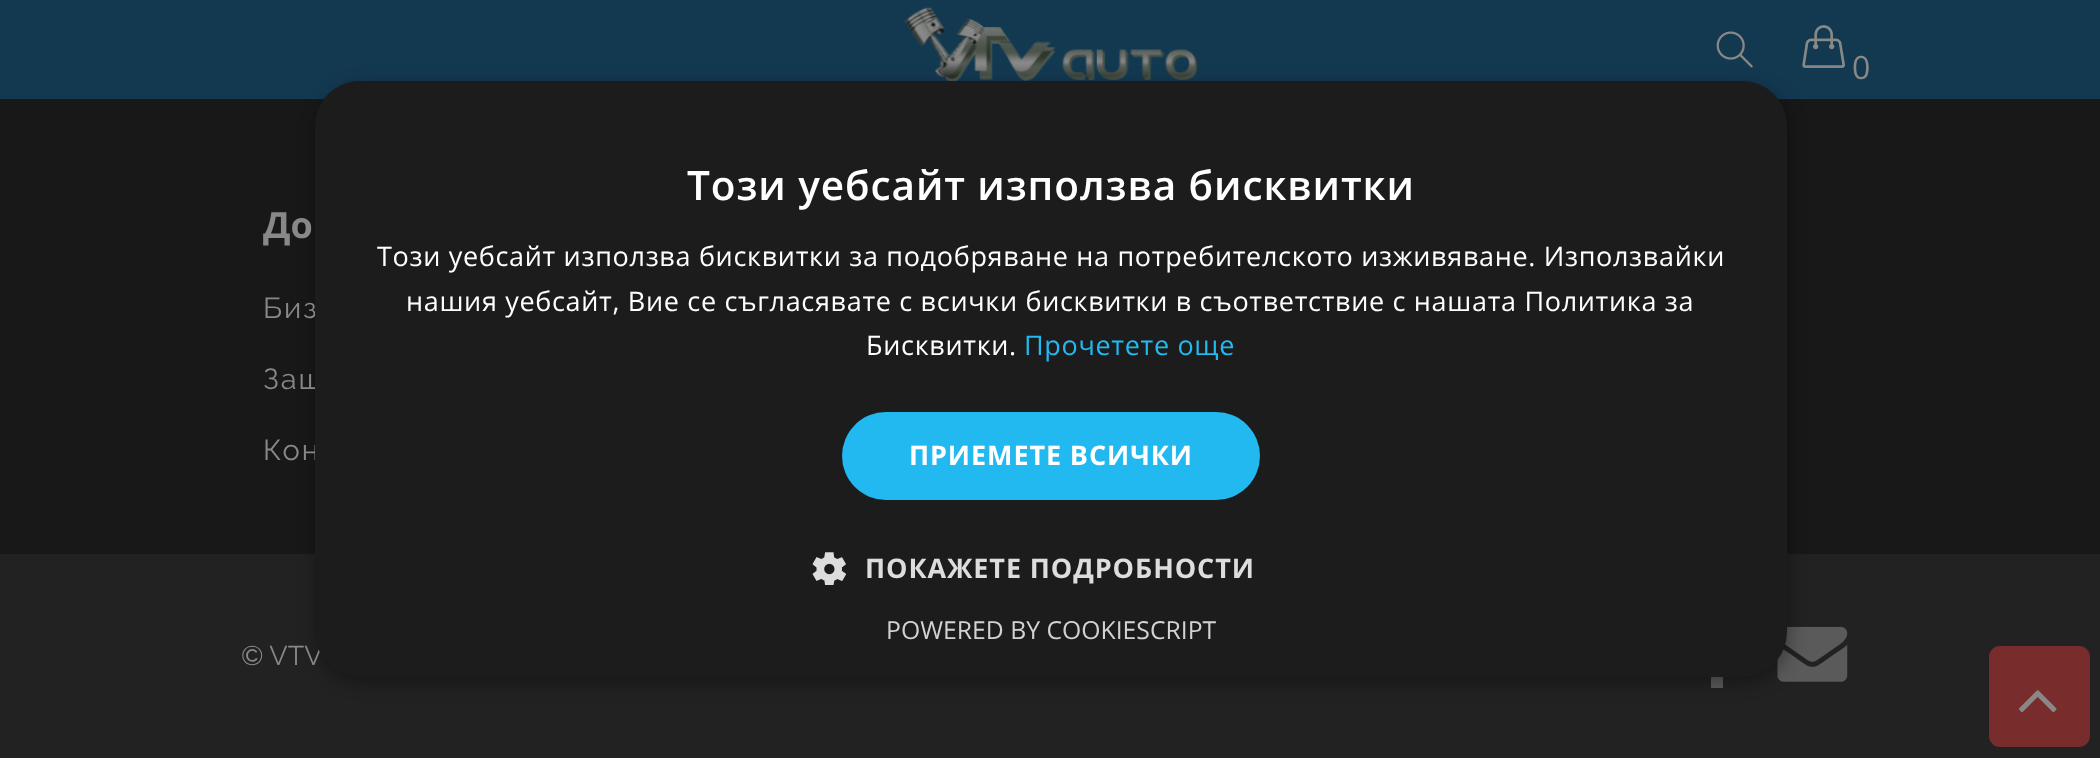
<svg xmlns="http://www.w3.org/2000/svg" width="2100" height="758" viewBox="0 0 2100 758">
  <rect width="100%" height="100%" fill="#181818"/>
  <path d="M0 0h2100v99H0z" fill="#133951"/>
  <image x="904" y="6" width="293" height="75" href="img/1.png"/>
  <image x="1716" y="31" width="37" height="37" href="img/2.png"/>
  <image x="1802" y="25" width="43" height="43" href="img/3.png"/>
  <path d="M0 554h2100v204H0z" fill="#232222"/>
  <rect x="1989" y="646" width="101" height="101" rx="11" fill="#792c2c"/>
  <image x="2018" y="690" width="39" height="23" href="img/4.png"/>
  <path d="M1725 633H1736V621C1725 621 1713 620 1711 633V642H1702V654H1711V688H1723V654H1734L1736 642H1723C1723 640 1722 633 1725 633Z" fill="#5b5b5b"/>
  <image x="1777" y="626" width="71" height="56" href="img/5.png"/>
  <rect x="317" y="86" width="1472" height="596" rx="45" fill="#00000059" filter="blur(9px)"/>
  <text x="1852" y="79" font-family="Open Sans" font-size="32" fill="#888">0</text>
  <text x="263" y="238" font-family="Open Sans" font-size="36" font-weight="bold" fill="#888">До</text>
  <g font-family="Raleway" font-size="29" font-weight="100" letter-spacing="2" fill="#888">
    <text x="263" y="318" word-spacing="2">Биз</text>
    <text x="263" y="389" word-spacing="4">Защ</text>
    <text x="263" y="460">Кон</text>
  </g>
  <text x="241" y="665" word-spacing="-1" font-family="Raleway" font-size="27" font-weight="100" fill="#888">© VTV</text>
  <rect x="315" y="81" width="1472" height="596" rx="45" fill="#1c1c1c"/>
  <text x="687" y="200" font-family="Open Sans" font-size="40.5" font-weight="600" letter-spacing="0.9" fill="#fff">Този уебсайт използва бисквитки</text>
  <g font-family="Open Sans" font-size="27" letter-spacing="0.67" fill="#fff">
    <text x="377" y="266">Този уебсайт използва бисквитки за подобряване на потребителското изживяване. Използвайки</text>
    <text x="406" y="311">нашия уебсайт, Вие се съгласявате с всички бисквитки в съответствие с нашата Политика за</text>
    <text x="866" y="355">Бисквитки.</text>
  </g>
  <text x="1024" y="355" font-family="Open Sans" font-size="27" letter-spacing="0.67" fill="#22b8f0">Прочетете още</text>
  <rect x="842" y="412" width="418" height="88" rx="44" fill="#22b8f0"/>
  <text x="909" y="465" font-family="Open Sans" font-size="27" font-weight="bold" letter-spacing="0.9" fill="#fff">ПРИЕМЕТЕ ВСИЧКИ</text>
  <image x="812" y="552" width="34" height="33" href="img/6.png"/>
  <text x="865" y="578" font-family="Open Sans" font-size="27" font-weight="bold" letter-spacing="0.9" fill="#ddd">ПОКАЖЕТЕ ПОДРОБНОСТИ</text>
  <text x="886" y="639" font-family="Open Sans" font-size="24.75" fill="#d2d2d2">POWERED BY COOKIESCRIPT</text>
</svg>
